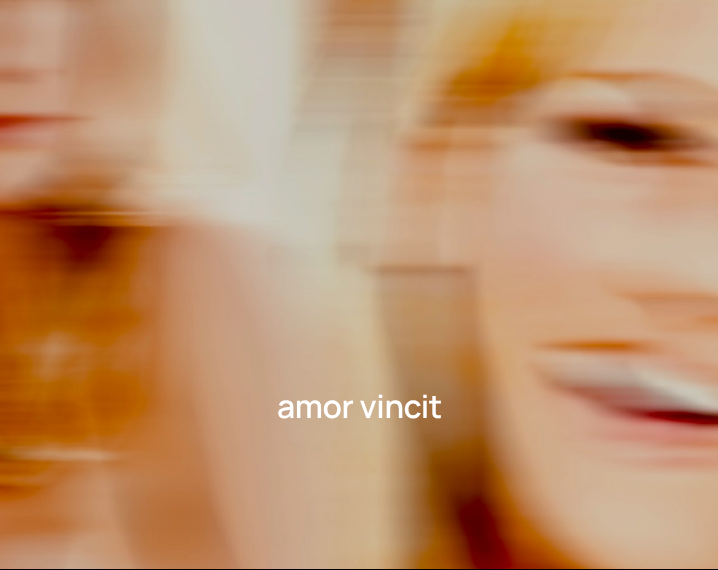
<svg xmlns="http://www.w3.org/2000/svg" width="718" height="570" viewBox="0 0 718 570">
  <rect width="100%" height="100%" fill="#000"/>
  <image x="0" y="0" width="718" height="569" href="img/1.png"/>
  <text x="277" y="418" font-family="Manrope" font-size="32" font-weight="600" letter-spacing="-0.4" fill="#fff">amor vincit</text>
</svg>
